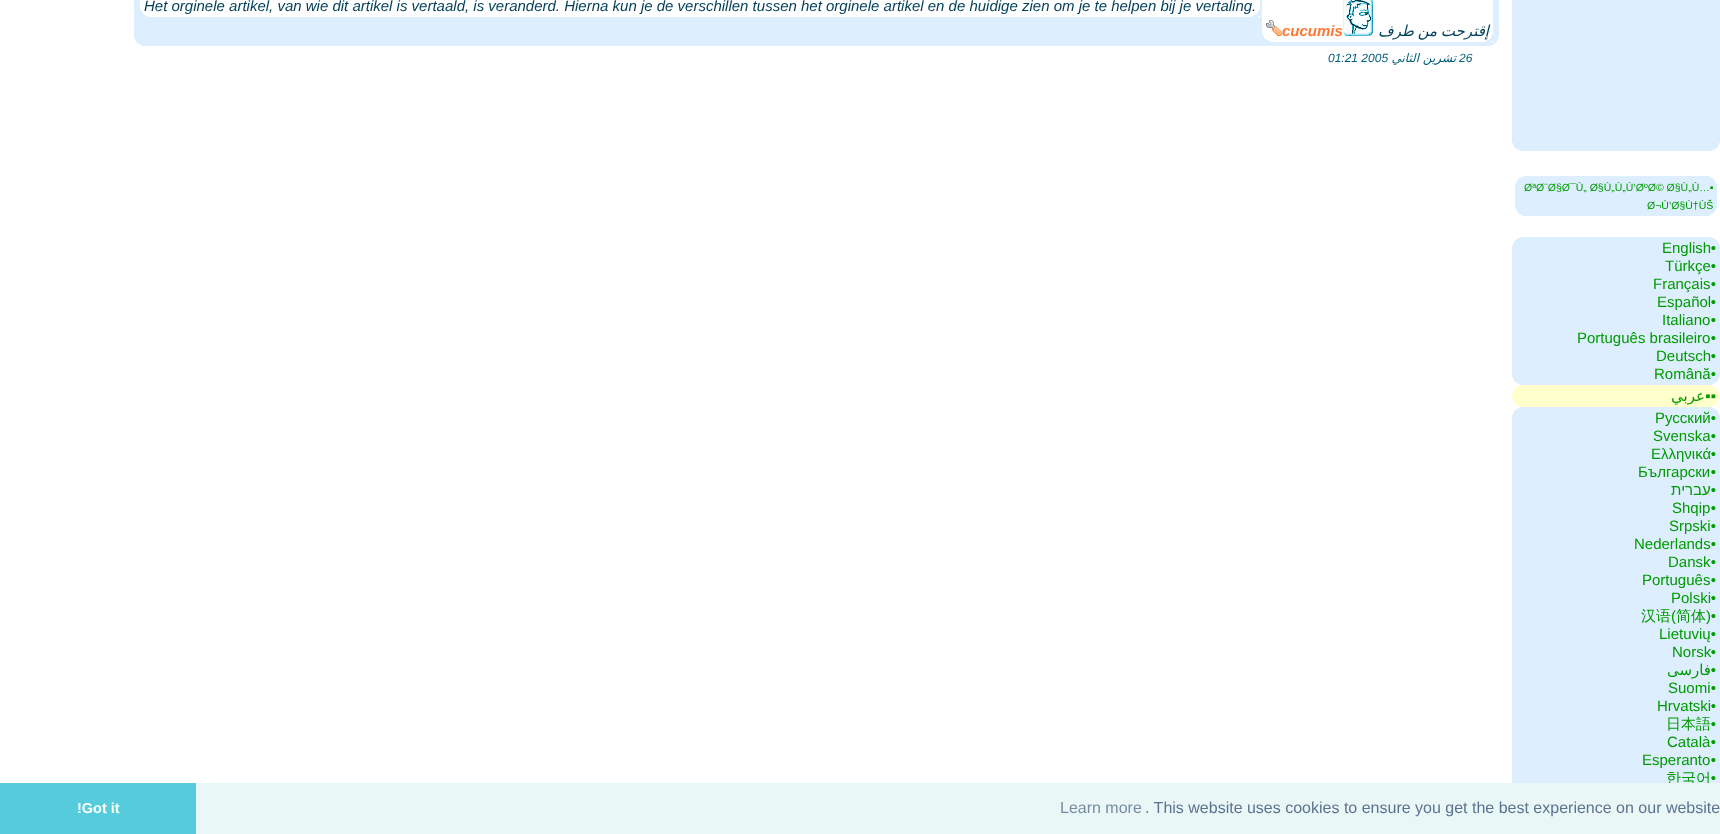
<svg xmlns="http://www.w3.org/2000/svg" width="1720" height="834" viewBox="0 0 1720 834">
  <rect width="100%" height="100%" fill="#fff"/>
  <path d="M134 0h1365v46H134z" fill="#def"/>
  <image x="134" y="38" width="8" height="8" href="img/1.png"/>
  <image x="1491" y="38" width="8" height="8" href="img/2.png"/>
  <path d="M140 0h1120v17H140z" fill="#fff"/>
  <image x="140" y="9" width="8" height="8" href="img/3.png"/>
  <image x="1252" y="9" width="8" height="8" href="img/4.png"/>
  <path d="M1262 0h231v42H1262z" fill="#fff"/>
  <image x="1262" y="34" width="8" height="8" href="img/3.png"/>
  <image x="1485" y="34" width="8" height="8" href="img/4.png"/>
  <image x="1266" y="20" width="16" height="16" href="img/5.png"/>
  <image x="1343" y="0" width="30" height="36" href="img/6.png"/>
  <path d="M1512 0h208v151H1512z" fill="#def"/>
  <image x="1512" y="143" width="8" height="8" href="img/1.png"/>
  <image x="1712" y="143" width="8" height="8" href="img/2.png"/>
  <path d="M1515 176h202v40H1515z" fill="#def"/>
  <image x="1515" y="176" width="8" height="8" href="img/7.png"/>
  <image x="1709" y="176" width="8" height="8" href="img/8.png"/>
  <image x="1515" y="208" width="8" height="8" href="img/1.png"/>
  <image x="1709" y="208" width="8" height="8" href="img/2.png"/>
  <path d="M1512 237h208v148H1512z" fill="#def"/>
  <image x="1512" y="237" width="8" height="8" href="img/7.png"/>
  <image x="1712" y="237" width="8" height="8" href="img/8.png"/>
  <image x="1512" y="377" width="8" height="8" href="img/1.png"/>
  <image x="1712" y="377" width="8" height="8" href="img/2.png"/>
  <path d="M1512 385h208v22H1512z" fill="#ffc"/>
  <image x="1512" y="385" width="8" height="8" href="img/9.png"/>
  <image x="1712" y="385" width="8" height="8" href="img/10.png"/>
  <image x="1512" y="399" width="8" height="8" href="img/11.png"/>
  <image x="1712" y="399" width="8" height="8" href="img/12.png"/>
  <path d="M1512 407h208v376H1512z" fill="#def"/>
  <image x="1512" y="407" width="8" height="8" href="img/7.png"/>
  <image x="1712" y="407" width="8" height="8" href="img/8.png"/>
  <path d="M0 783h196v51H0z" fill="#56cbdb"/>
  <text x="144" y="11" font-family="Liberation Sans" font-size="15" font-style="italic" fill="#003e5a">Het orginele artikel, van wie dit artikel is vertaald, is veranderd. Hierna kun je de verschillen tussen het orginele artikel en de huidige zien om je te helpen bij je vertaling.</text>
  <text x="1282" y="36" font-family="Liberation Sans" font-size="15" font-weight="bold" font-style="italic" fill="#f73">cucumis</text>
  <text x="1489" y="36" word-spacing="-1" font-family="DejaVu Sans" font-size="15" font-style="italic" direction="rtl" fill="#003e5a">إقترحت من طرف</text>
  <text x="1328" y="62" font-family="Liberation Sans" font-size="12" font-style="italic" fill="#025e7a">01:21 2005</text>
  <text x="1456" y="62" font-family="DejaVu Sans" font-size="12" font-style="italic" direction="rtl" fill="#025e7a">تشرين الثاني</text>
  <text x="1459" y="62" font-family="Liberation Sans" font-size="12" font-style="italic" fill="#025e7a">26</text>
  <g font-family="Liberation Sans" font-size="10.5" fill="#019a01">
    <text x="1524" y="191">ØªØ¨Ø§Ø¯Ù„ Ø§Ù„Ù„Ù‘ØºØ© Ø§Ù„Ù…▪</text>
    <text x="1647" y="209">Ø¬Ù‘Ø§Ù†ÙŠ</text>
  </g>
  <text x="1662" y="253" font-family="Liberation Sans" font-size="15" fill="#019a01">English</text>
  <text x="1716" y="253" font-family="Liberation Sans" font-size="15" direction="rtl" fill="#019a01">•</text>
  <text x="1665" y="271" font-family="Liberation Sans" font-size="15" fill="#019a01">Türkçe</text>
  <text x="1716" y="271" font-family="Liberation Sans" font-size="15" direction="rtl" fill="#019a01">•</text>
  <text x="1653" y="289" font-family="Liberation Sans" font-size="15" fill="#019a01">Français</text>
  <text x="1716" y="289" font-family="Liberation Sans" font-size="15" direction="rtl" fill="#019a01">•</text>
  <text x="1657" y="307" font-family="Liberation Sans" font-size="15" fill="#019a01">Español</text>
  <text x="1716" y="307" font-family="Liberation Sans" font-size="15" direction="rtl" fill="#019a01">•</text>
  <text x="1662" y="325" font-family="Liberation Sans" font-size="15" fill="#019a01">Italiano</text>
  <text x="1716" y="325" font-family="Liberation Sans" font-size="15" direction="rtl" fill="#019a01">•</text>
  <text x="1577" y="343" font-family="Liberation Sans" font-size="15" fill="#019a01">Português brasileiro</text>
  <text x="1716" y="343" font-family="Liberation Sans" font-size="15" direction="rtl" fill="#019a01">•</text>
  <text x="1656" y="361" font-family="Liberation Sans" font-size="15" fill="#019a01">Deutsch</text>
  <text x="1716" y="361" font-family="Liberation Sans" font-size="15" direction="rtl" fill="#019a01">•</text>
  <text x="1654" y="379" font-family="Liberation Sans" font-size="15" fill="#019a01">Română</text>
  <text x="1716" y="379" font-family="Liberation Sans" font-size="15" direction="rtl" fill="#019a01">•</text>
  <text x="1705" y="401" font-family="DejaVu Sans" font-size="15" direction="rtl" fill="#019a01">عربي</text>
  <text x="1716" y="401" font-family="Liberation Sans" font-size="15" direction="rtl" fill="#019a01">▪▪</text>
  <text x="1655" y="423" font-family="Liberation Sans" font-size="15" fill="#019a01">Русский</text>
  <text x="1716" y="423" font-family="Liberation Sans" font-size="15" direction="rtl" fill="#019a01">•</text>
  <text x="1653" y="441" font-family="Liberation Sans" font-size="15" fill="#019a01">Svenska</text>
  <text x="1716" y="441" font-family="Liberation Sans" font-size="15" direction="rtl" fill="#019a01">•</text>
  <text x="1651" y="459" font-family="Liberation Sans" font-size="15" fill="#019a01">Ελληνικά</text>
  <text x="1716" y="459" font-family="Liberation Sans" font-size="15" direction="rtl" fill="#019a01">•</text>
  <text x="1638" y="477" font-family="Liberation Sans" font-size="15" fill="#019a01">Български</text>
  <g font-family="Liberation Sans" font-size="15" direction="rtl" fill="#019a01">
    <text x="1716" y="477">•</text>
    <text x="1716" y="495">•עברית</text>
  </g>
  <text x="1672" y="513" font-family="Liberation Sans" font-size="15" fill="#019a01">Shqip</text>
  <text x="1716" y="513" font-family="Liberation Sans" font-size="15" direction="rtl" fill="#019a01">•</text>
  <text x="1669" y="531" font-family="Liberation Sans" font-size="15" fill="#019a01">Srpski</text>
  <text x="1716" y="531" font-family="Liberation Sans" font-size="15" direction="rtl" fill="#019a01">•</text>
  <text x="1634" y="549" font-family="Liberation Sans" font-size="15" fill="#019a01">Nederlands</text>
  <text x="1716" y="549" font-family="Liberation Sans" font-size="15" direction="rtl" fill="#019a01">•</text>
  <text x="1668" y="567" font-family="Liberation Sans" font-size="15" fill="#019a01">Dansk</text>
  <text x="1716" y="567" font-family="Liberation Sans" font-size="15" direction="rtl" fill="#019a01">•</text>
  <text x="1642" y="585" font-family="Liberation Sans" font-size="15" fill="#019a01">Português</text>
  <text x="1716" y="585" font-family="Liberation Sans" font-size="15" direction="rtl" fill="#019a01">•</text>
  <text x="1671" y="603" font-family="Liberation Sans" font-size="15" fill="#019a01">Polski</text>
  <text x="1716" y="603" font-family="Liberation Sans" font-size="15" direction="rtl" fill="#019a01">•</text>
  <text x="1641" y="621" font-family="WenQuanYi Zen Hei" font-size="15" font-weight="500" fill="#019a01">汉语</text>
  <text x="1671" y="621" font-family="Liberation Sans" font-size="15" fill="#019a01">(</text>
  <text x="1676" y="621" font-family="WenQuanYi Zen Hei" font-size="15" font-weight="500" fill="#019a01">简体</text>
  <text x="1706" y="621" font-family="Liberation Sans" font-size="15" fill="#019a01">)</text>
  <text x="1716" y="621" font-family="Liberation Sans" font-size="15" direction="rtl" fill="#019a01">•</text>
  <text x="1659" y="639" font-family="Liberation Sans" font-size="15" fill="#019a01">Lietuvių</text>
  <text x="1716" y="639" font-family="Liberation Sans" font-size="15" direction="rtl" fill="#019a01">•</text>
  <text x="1672" y="657" font-family="Liberation Sans" font-size="15" fill="#019a01">Norsk</text>
  <text x="1716" y="657" font-family="Liberation Sans" font-size="15" direction="rtl" fill="#019a01">•</text>
  <text x="1711" y="675" font-family="DejaVu Sans" font-size="15" direction="rtl" fill="#019a01">فارسی</text>
  <text x="1716" y="675" font-family="Liberation Sans" font-size="15" direction="rtl" fill="#019a01">•</text>
  <text x="1668" y="693" font-family="Liberation Sans" font-size="15" fill="#019a01">Suomi</text>
  <text x="1716" y="693" font-family="Liberation Sans" font-size="15" direction="rtl" fill="#019a01">•</text>
  <text x="1657" y="711" font-family="Liberation Sans" font-size="15" fill="#019a01">Hrvatski</text>
  <text x="1716" y="711" font-family="Liberation Sans" font-size="15" direction="rtl" fill="#019a01">•</text>
  <text x="1666" y="729" font-family="WenQuanYi Zen Hei" font-size="15" font-weight="500" fill="#019a01">日本語</text>
  <text x="1716" y="729" font-family="Liberation Sans" font-size="15" direction="rtl" fill="#019a01">•</text>
  <text x="1667" y="747" font-family="Liberation Sans" font-size="15" fill="#019a01">Català</text>
  <text x="1716" y="747" font-family="Liberation Sans" font-size="15" direction="rtl" fill="#019a01">•</text>
  <text x="1642" y="765" font-family="Liberation Sans" font-size="15" fill="#019a01">Esperanto</text>
  <text x="1716" y="765" font-family="Liberation Sans" font-size="15" direction="rtl" fill="#019a01">•</text>
  <text x="1666" y="783" font-family="WenQuanYi Zen Hei" font-size="15" font-weight="500" fill="#019a01">한국어</text>
  <text x="1716" y="783" font-family="Liberation Sans" font-size="15" direction="rtl" fill="#019a01">•</text>
  <path d="M196 783h1524v51H196z" fill="#eaf7f7"/>
  <text x="77" y="813" font-family="Liberation Sans" font-size="14.5" font-weight="bold" fill="#fff">!Got it</text>
  <text x="1060" y="813" font-family="Liberation Sans" font-size="16" fill="#788da5">Learn more</text>
  <text x="1145" y="813" font-family="Liberation Sans" font-size="16" fill="#5c7291">. This website uses cookies to ensure you get the best experience on our website</text>
</svg>
